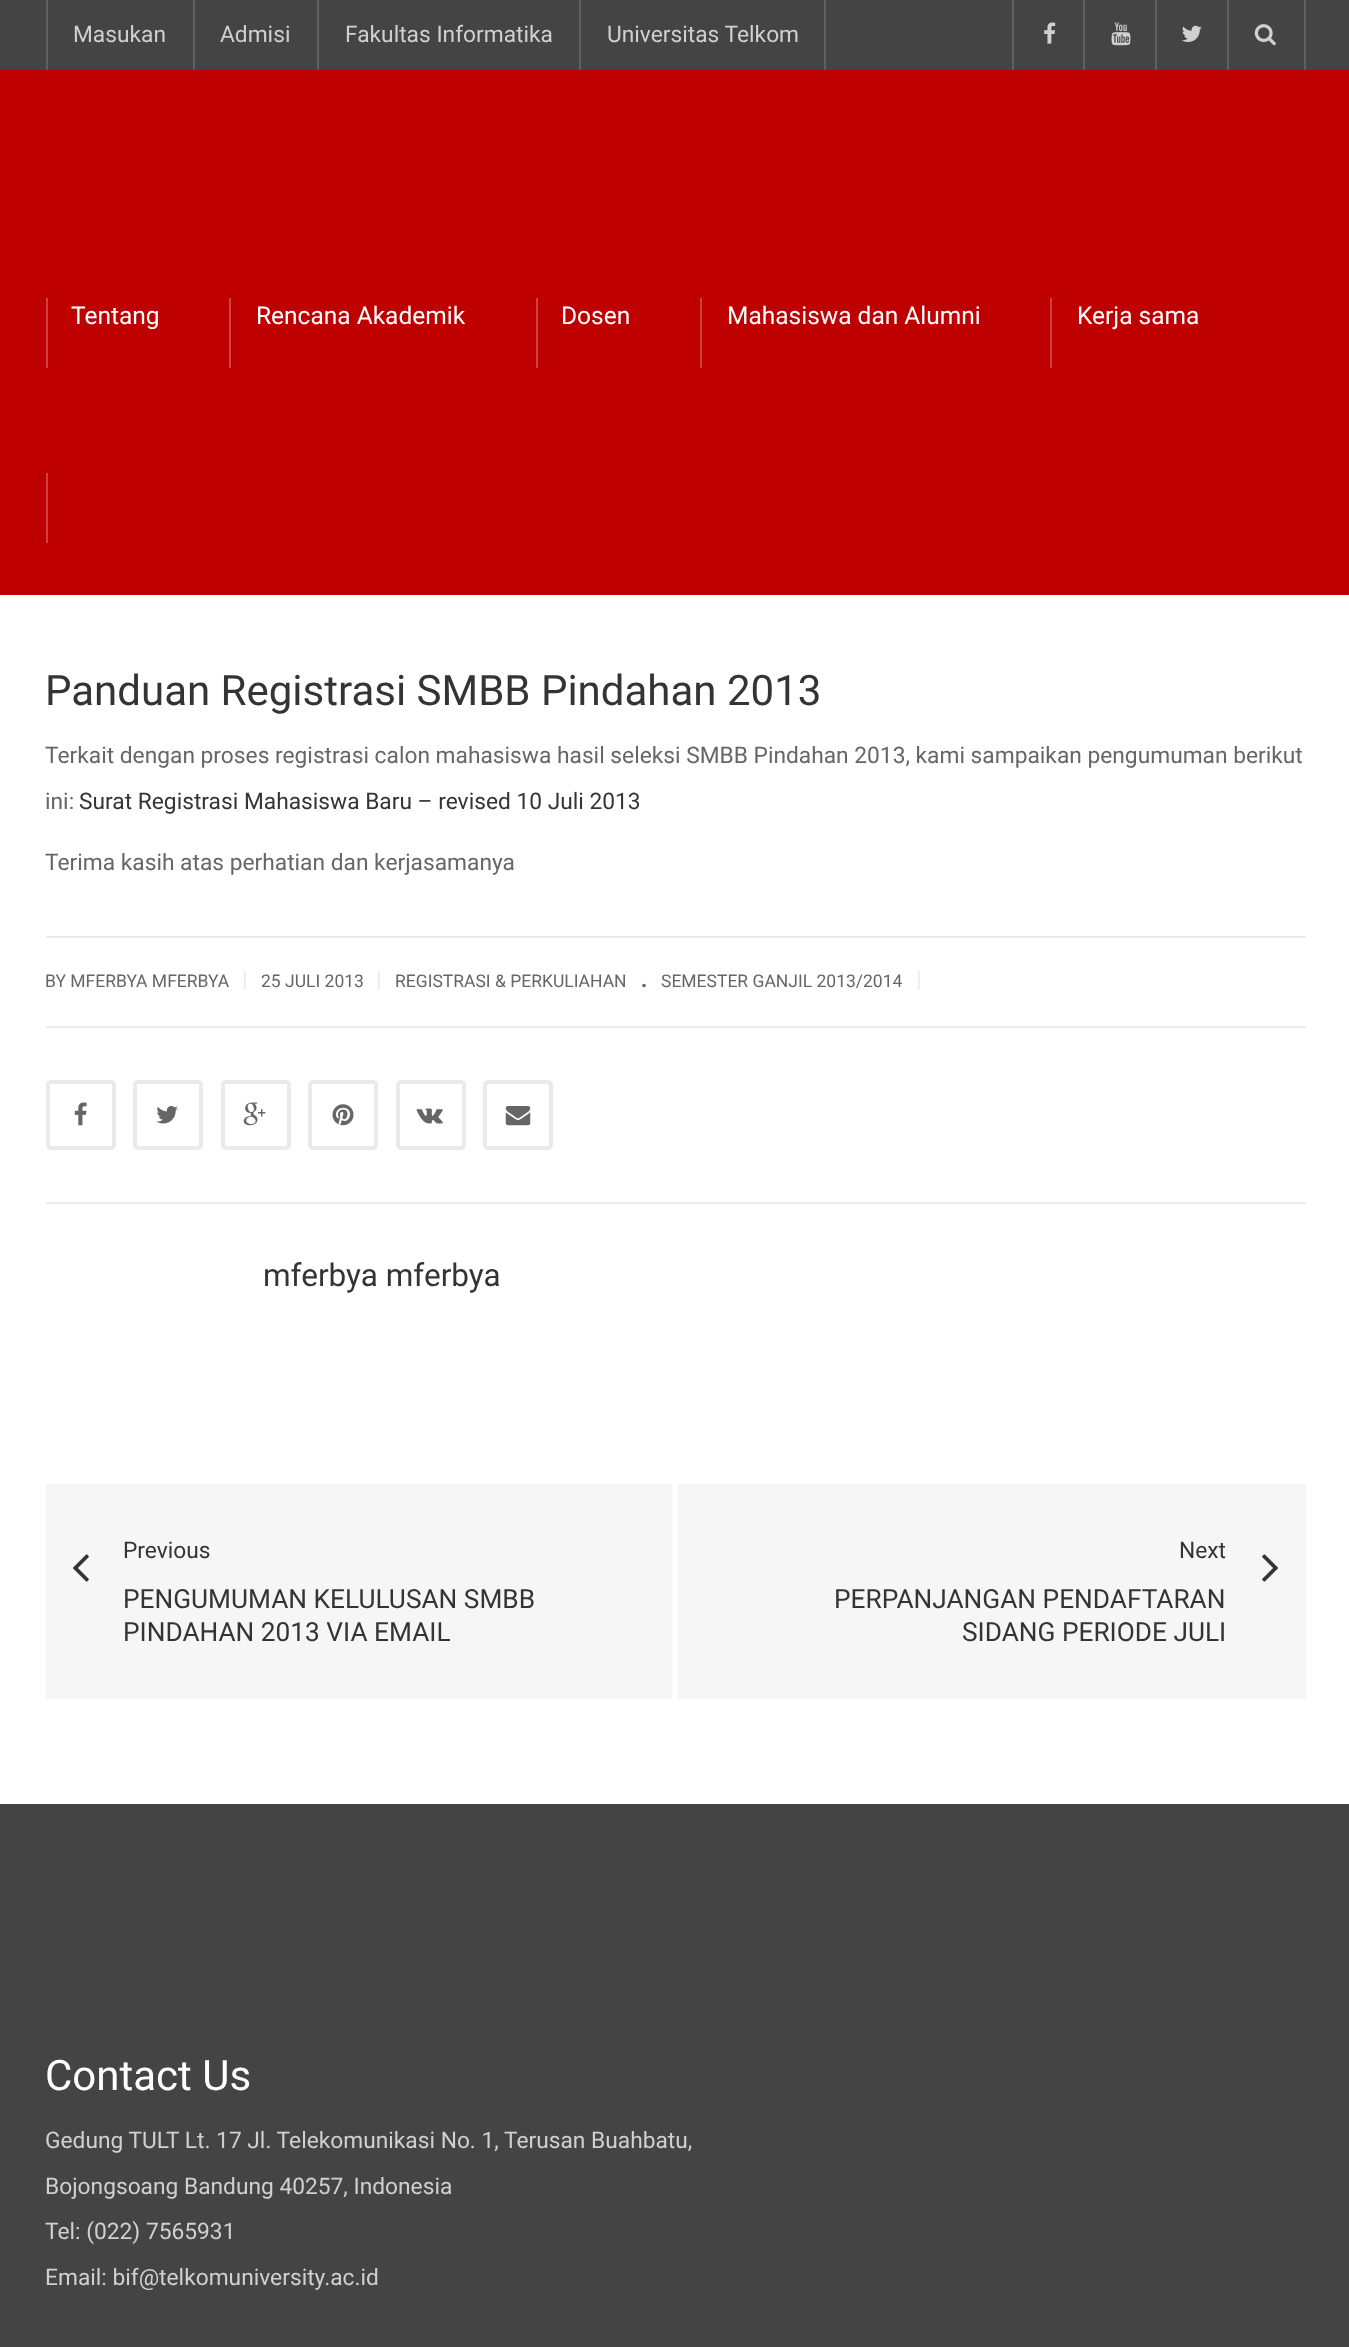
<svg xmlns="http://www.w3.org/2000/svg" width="1349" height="2347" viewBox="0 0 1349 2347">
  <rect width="100%" height="100%" fill="#fff"/>
  <path d="M0 0h1349v70H0z" fill="#444"/>
  <path d="M46 0h2v70H46z" fill="#606060"/>
  <path d="M193 0h2v70H193z" fill="#606060"/>
  <path d="M317 0h2v70H317z" fill="#606060"/>
  <path d="M824 0h2v70H824z" fill="#606060"/>
  <path d="M579 0h2v70H579z" fill="#606060"/>
  <path d="M1012 0h2v70H1012z" fill="#606060"/>
  <image x="1044" y="22" width="12" height="22" href="img/1.png"/>
  <path d="M1083 0h2v70H1083z" fill="#606060"/>
  <image x="1111" y="22" width="20" height="24" href="img/2.png"/>
  <path d="M1155 0h2v70H1155z" fill="#606060"/>
  <image x="1182" y="25" width="20" height="17" href="img/3.png"/>
  <path d="M1304 0h2v70H1304z" fill="#606060"/>
  <path d="M1227 0h2v70H1227z" fill="#606060"/>
  <image x="1254" y="24" width="22" height="22" href="img/4.png"/>
  <path d="M0 70h1349v525H0z" fill="#bf0000"/>
  <path d="M46 298h2v70H46z" fill="#cf4040"/>
  <path d="M229 298h2v70H229z" fill="#cf4040"/>
  <path d="M536 298h2v70H536z" fill="#cf4040"/>
  <path d="M700 298h2v70H700z" fill="#cf4040"/>
  <path d="M1050 298h2v70H1050z" fill="#cf4040"/>
  <path d="M46 473h2v70H46z" fill="#cf4040"/>
  <path d="M46 936h1260v2H46z" fill="#eaeaea"/>
  <path d="M46 1026h1260v2H46z" fill="#eaeaea"/>
  <rect x="48" y="1082" width="66" height="66" rx="3" fill="none" stroke="#eaeaea" stroke-width="4"/>
  <image x="74" y="1102" width="13" height="24" href="img/5.png"/>
  <rect x="135" y="1082" width="66" height="66" rx="3" fill="none" stroke="#eaeaea" stroke-width="4"/>
  <image x="156" y="1106" width="22" height="18" href="img/6.png"/>
  <rect x="223" y="1082" width="66" height="66" rx="3" fill="none" stroke="#eaeaea" stroke-width="4"/>
  <image x="243" y="1102" width="23" height="24" href="img/7.png"/>
  <rect x="310" y="1082" width="66" height="66" rx="3" fill="none" stroke="#eaeaea" stroke-width="4"/>
  <image x="332" y="1104" width="22" height="22" href="img/8.png"/>
  <rect x="398" y="1082" width="66" height="66" rx="3" fill="none" stroke="#eaeaea" stroke-width="4"/>
  <image x="416" y="1108" width="27" height="16" href="img/9.png"/>
  <rect x="485" y="1082" width="66" height="66" rx="3" fill="none" stroke="#eaeaea" stroke-width="4"/>
  <image x="505" y="1106" width="26" height="20" href="img/10.png"/>
  <path d="M46 1202h1260v2H46z" fill="#eaeaea"/>
  <path d="M46 1484h1260v215H46z" fill="#f6f6f6"/>
  <path d="M672 1484h6v215H672z" fill="#fff"/>
  <image x="73" y="1554" width="16" height="28" href="img/11.png"/>
  <image x="1262" y="1554" width="16" height="28" href="img/12.png"/>
  <path d="M0 1804h1349v543H0z" fill="#444"/>
  <g font-family="Roboto" font-size="22.75" fill="#d0d0d0">
    <text x="73" y="42">Masukan</text>
    <text x="220" y="42">Admisi</text>
    <text x="345" y="42">Fakultas Informatika</text>
    <text x="607" y="42">Universitas Telkom</text>
  </g>
  <g font-family="Roboto" font-size="24.5" fill="#fff">
    <text x="71" y="324">Tentang</text>
    <text x="256" y="324">Rencana Akademik</text>
    <text x="561" y="324">Dosen</text>
    <text x="727" y="324">Mahasiswa dan Alumni</text>
    <text x="1077" y="324">Kerja sama</text>
  </g>
  <text x="45" y="705" font-family="Roboto" font-size="42" fill="#343434">Panduan Registrasi SMBB Pindahan 2013</text>
  <g font-family="Roboto" font-size="22.75" fill="#666">
    <text x="45" y="763">Terkait dengan proses registrasi calon mahasiswa hasil seleksi SMBB Pindahan 2013, kami sampaikan pengumuman berikut</text>
    <text x="45" y="809">ini:</text>
  </g>
  <text x="79" y="809" font-family="Roboto" font-size="22.75" fill="#343434">Surat Registrasi Mahasiswa Baru – revised 10 Juli 2013</text>
  <text x="45" y="870" font-family="Roboto" font-size="22.75" fill="#666">Terima kasih atas perhatian dan kerjasamanya</text>
  <text x="45" y="987" font-family="Roboto" font-size="17.5" fill="#666">BY MFERBYA MFERBYA</text>
  <text x="242" y="987" font-family="Roboto" font-size="22.75" fill="#eaeaea">|</text>
  <text x="261" y="987" font-family="Roboto" font-size="17.5" fill="#666">25 JULI 2013</text>
  <text x="376" y="987" font-family="Roboto" font-size="22.75" fill="#eaeaea">|</text>
  <text x="395" y="987" font-family="Roboto" font-size="17.5" fill="#666">REGISTRASI &amp; PERKULIAHAN</text>
  <text x="640" y="987" font-family="Roboto" font-size="31.5" fill="#666">.</text>
  <text x="661" y="987" font-family="Roboto" font-size="17.5" fill="#666">SEMESTER GANJIL 2013/2014</text>
  <text x="916" y="987" font-family="Roboto" font-size="22.75" fill="#eaeaea">|</text>
  <text x="263" y="1286" font-family="Roboto" font-size="31.5" fill="#343434">mferbya mferbya</text>
  <text x="123" y="1558" font-family="Roboto" font-size="22.75" fill="#343434">Previous</text>
  <g font-family="Roboto" font-size="26.25" fill="#343434">
    <text x="123" y="1608">PENGUMUMAN KELULUSAN SMBB</text>
    <text x="123" y="1641">PINDAHAN 2013 VIA EMAIL</text>
  </g>
  <text x="1179" y="1558" font-family="Roboto" font-size="22.75" fill="#343434">Next</text>
  <g font-family="Roboto" font-size="26.25" fill="#343434">
    <text x="834" y="1608">PERPANJANGAN PENDAFTARAN</text>
    <text x="962" y="1641">SIDANG PERIODE JULI</text>
  </g>
  <text x="45" y="2090" font-family="Roboto" font-size="42" fill="#fff">Contact Us</text>
  <g font-family="Roboto" font-size="22.75" fill="#d0d0d0">
    <text x="45" y="2148">Gedung TULT Lt. 17 Jl. Telekomunikasi No. 1, Terusan Buahbatu,</text>
    <text x="45" y="2194">Bojongsoang Bandung 40257, Indonesia</text>
    <text x="45" y="2239">Tel: (022) 7565931</text>
    <text x="45" y="2285">Email: bif@telkomuniversity.ac.id</text>
  </g>
</svg>
